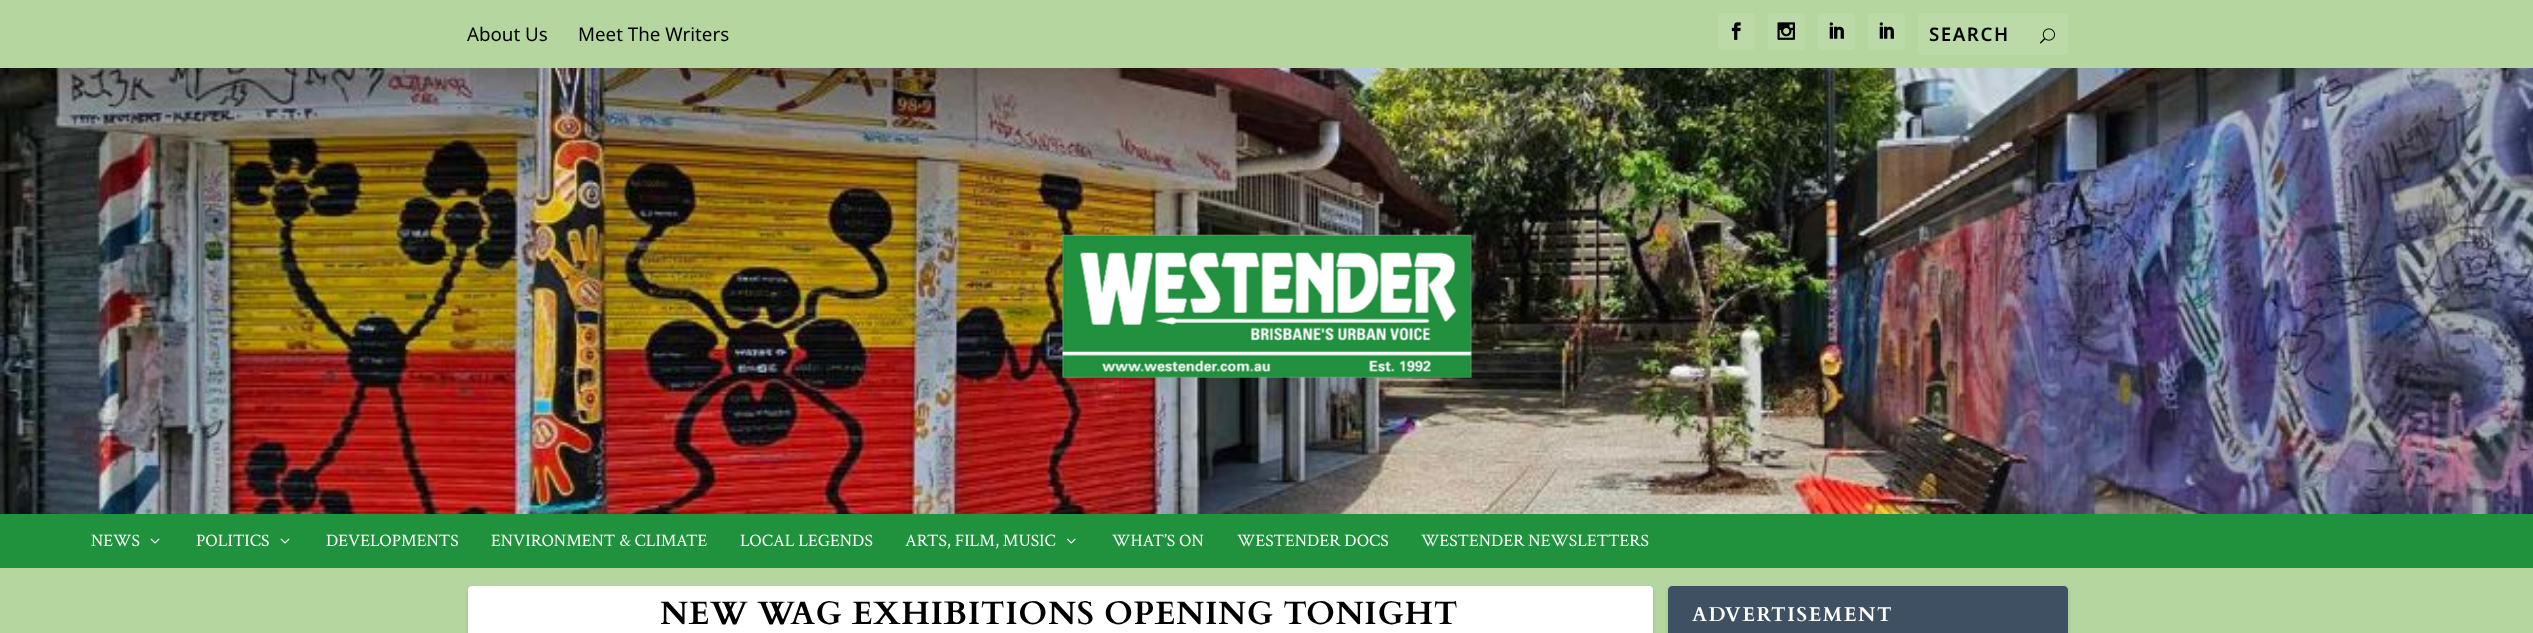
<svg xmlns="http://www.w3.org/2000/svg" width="2533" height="633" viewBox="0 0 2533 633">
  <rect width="100%" height="100%" fill="#b5d69e"/>
  <rect x="1718" y="13" width="37" height="37" rx="4" fill="#bcdaa8"/>
  <image x="1731" y="22" width="10" height="18" href="img/1.png"/>
  <rect x="1768" y="13" width="37" height="37" rx="4" fill="#bcdaa8"/>
  <image x="1777" y="22" width="18" height="18" href="img/2.png"/>
  <rect x="1818" y="13" width="37" height="37" rx="4" fill="#bcdaa8"/>
  <image x="1829" y="22" width="15" height="17" href="img/3.png"/>
  <rect x="1868" y="13" width="37" height="37" rx="4" fill="#bcdaa8"/>
  <image x="1879" y="22" width="15" height="17" href="img/3.png"/>
  <rect x="1918" y="13" width="150" height="42" rx="4" fill="#bcdaa8"/>
  <image x="2040" y="28" width="15" height="16" href="img/4.png"/>
  <image x="0" y="68" width="2533" height="446" href="img/5.png"/>
  <image x="1062" y="234" width="410" height="144" href="img/6.png"/>
  <path d="M0 514h2533v54H0z" fill="#20923d"/>
  <image x="150" y="538" width="10" height="6" href="img/7.png"/>
  <image x="280" y="538" width="10" height="6" href="img/7.png"/>
  <image x="1066" y="538" width="10" height="6" href="img/8.png"/>
  <rect x="468" y="588" width="1185" height="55" rx="4" fill="#0000001a" filter="blur(2px)"/>
  <rect x="468" y="586" width="1185" height="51" rx="4" fill="#fff"/>
  <rect x="1668" y="588" width="400" height="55" rx="4" fill="#0000001a" filter="blur(2px)"/>
  <path d="M1672 586H2064C2066 586 2068 588 2068 590V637H1668V590C1668 588 1670 586 1672 586Z" fill="#3e5062"/>
  <g font-family="Noto Sans" font-size="18.75" fill="#000">
    <text x="467" y="41">About Us</text>
    <text x="578" y="41">Meet The Writers</text>
  </g>
  <text x="1929" y="41" font-family="Noto Sans" font-size="18.75" font-weight="600" letter-spacing="1.5" fill="#000">SEARCH</text>
  <g font-family="Crimson Text" font-size="17.5" fill="#fff">
    <text x="91" y="546">NEWS</text>
    <text x="196" y="546">POLITICS</text>
    <text x="326" y="546">DEVELOPMENTS</text>
    <text x="491" y="546">ENVIRONMENT &amp; CLIMATE</text>
    <text x="740" y="546">LOCAL LEGENDS</text>
    <text x="905" y="546">ARTS, FILM, MUSIC</text>
    <text x="1112" y="546">WHAT’S ON</text>
    <text x="1237" y="546">WESTENDER DOCS</text>
    <text x="1421" y="546">WESTENDER NEWSLETTERS</text>
  </g>
  <text x="660" y="624" font-family="Cardo" font-size="32.5" font-weight="bold" letter-spacing="0.6" fill="#000">NEW WAG EXHIBITIONS OPENING TONIGHT</text>
  <text x="1692" y="621" font-family="Cardo" font-size="20" font-weight="bold" letter-spacing="1.5" fill="#fff">ADVERTISEMENT</text>
</svg>
